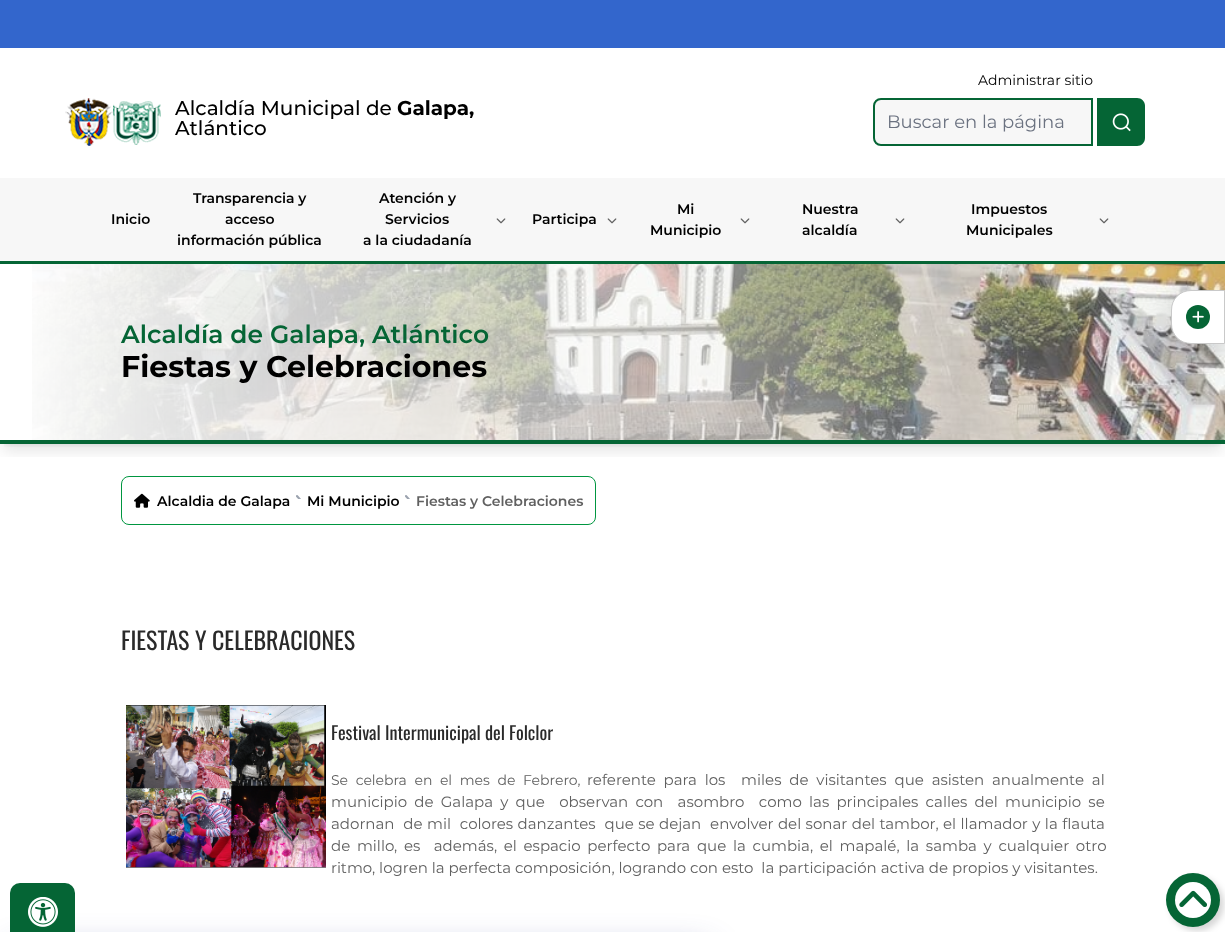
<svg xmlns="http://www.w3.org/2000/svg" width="1225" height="932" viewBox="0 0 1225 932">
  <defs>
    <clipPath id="clip1"><path d="M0 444h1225v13H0z"/></clipPath>
    <clipPath id="clip2"><path d="M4 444h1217v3H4z"/></clipPath>
  </defs>
  <rect width="100%" height="100%" fill="#fff"/>
  <path d="M0 0h1225v48H0z" fill="#36c"/>
  <image x="65" y="98" width="48" height="48" href="img/1.png"/>
  <image x="113" y="101" width="48" height="44" href="img/2.png"/>
  <path d="M881 99H1092V145H881C877 145 874 142 874 138V106C874 102 877 99 881 99Z" fill="#f7f7f7" stroke="#056535" stroke-width="2"/>
  <path d="M1097 98H1137C1141.5 98 1145 101.5 1145 106V138C1145 142.5 1141.5 146 1137 146H1097Z" fill="#056535"/>
  <image x="1112" y="113" width="19" height="19" href="img/3.png"/>
  <g clip-path="url(#clip1)">
    <path d="M3 277h1219v174H3z" fill="#0000001a" filter="blur(7.5px)"/>
  </g>
  <path d="M0 178h1225v83H0z" fill="#f7f7f7"/>
  <g clip-path="url(#clip2)">
    <path d="M4 272h1217v172H4z" fill="#0000001a" filter="blur(3px)"/>
  </g>
  <path d="M0 261h1225v3H0z" fill="#056535"/>
  <image x="496" y="218" width="10" height="6" href="img/4.png"/>
  <image x="607" y="218" width="10" height="6" href="img/4.png"/>
  <image x="740" y="218" width="10" height="6" href="img/4.png"/>
  <image x="895" y="218" width="10" height="6" href="img/4.png"/>
  <image x="1099" y="218" width="10" height="6" href="img/4.png"/>
  <path d="M0 440h1225v4H0z" fill="#056535"/>
  <image x="32" y="264" width="1193" height="176" href="img/5.png"/>
  <rect x="121.5" y="476.5" width="474" height="48" rx="7.5" fill="none" stroke="#009640"/>
  <image x="134" y="493" width="16" height="15" href="img/6.png"/>
  <image x="296" y="495" width="5" height="4" href="img/7.png"/>
  <image x="405" y="495" width="5" height="4" href="img/7.png"/>
  <image x="126" y="705" width="200" height="163" href="img/8.png"/>
  <rect x="1170" y="877" width="54" height="54" rx="27" fill="#00000029" filter="blur(3px)"/>
  <circle cx="1193" cy="900" r="27" fill="#056535"/>
  <circle cx="1193" cy="900" r="18" fill="#fff"/>
  <image x="1179" y="890" width="28" height="17" href="img/9.png"/>
  <rect x="10" y="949" width="700" height="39" rx="8" fill="#1f26875e" filter="blur(16px)"/>
  <rect x="10" y="883" width="65" height="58" rx="10" fill="#056535"/>
  <image x="28" y="897" width="30" height="30" href="img/10.png"/>
  <rect x="1171" y="302" width="54" height="54" rx="20" fill="#0000002e" filter="blur(16px)"/>
  <path d="M1191 290.5H1224.5V343.5H1191C1180 343.5 1171.5 335 1171.5 324V310C1171.5 299 1180 290.5 1191 290.5Z" fill="#fff" stroke="#c9c9c9"/>
  <circle cx="1198" cy="317" r="12" fill="#056535"/>
  <image x="1192" y="311" width="12" height="12" href="img/11.png"/>
  <text x="175" y="115" font-family="Montserrat" font-size="20" font-weight="500" fill="#000">Alcaldía Municipal de</text>
  <text x="397" y="115" font-family="Montserrat" font-size="20" font-weight="bold" fill="#000">Galapa,</text>
  <text x="175" y="135" font-family="Montserrat" font-size="20" font-weight="500" fill="#000">Atlántico</text>
  <text x="978" y="85" font-family="Montserrat" font-size="14" fill="#000">Administrar sitio</text>
  <text x="887" y="128" font-family="Montserrat" font-size="18" fill="#6b7280">Buscar en la página</text>
  <g font-family="Montserrat" font-size="14" font-weight="600" fill="#000">
    <text x="111" y="224">Inicio</text>
    <text x="193" y="203">Transparencia y</text>
    <text x="225" y="224">acceso</text>
    <text x="177" y="245">información pública</text>
    <text x="379" y="203">Atención y</text>
    <text x="385" y="224">Servicios</text>
    <text x="363" y="245">a la ciudadanía</text>
    <text x="532" y="224">Participa</text>
    <text x="677" y="214">Mi</text>
    <text x="650" y="235">Municipio</text>
    <text x="802" y="214">Nuestra</text>
    <text x="802" y="235">alcaldía</text>
    <text x="971" y="214">Impuestos</text>
    <text x="966" y="235">Municipales</text>
  </g>
  <text x="121" y="343" font-family="Montserrat" font-size="25" font-weight="600" fill="#056535">Alcaldía de Galapa, Atlántico</text>
  <text x="121" y="377" font-family="Montserrat" font-size="30" font-weight="bold" fill="#000">Fiestas y Celebraciones</text>
  <g font-family="Montserrat" font-size="14" font-weight="600" fill="#000">
    <text x="157" y="506">Alcaldia de Galapa</text>
    <text x="307" y="506">Mi Municipio</text>
  </g>
  <text x="416" y="506" font-family="Montserrat" font-size="14" font-weight="600" fill="#606060">Fiestas y Celebraciones</text>
  <text x="121" y="650" font-family="Oswald" font-size="24" fill="#2a2a2a">FIESTAS Y CELEBRACIONES</text>
  <text x="331" y="740" font-family="Oswald" font-size="18.25" fill="#2a2a2a">Festival Intermunicipal del Folclor</text>
  <text x="331" y="785" word-spacing="3.9" font-family="Montserrat" font-size="14" fill="#606060">Se celebra en el mes de Febrero,</text>
  <g font-family="Montserrat" font-size="15" fill="#606060">
    <text x="587" y="785" word-spacing="3.9" xml:space="preserve">referente para los  miles de visitantes que asisten anualmente al</text>
    <text x="331" y="807" word-spacing="3.25" xml:space="preserve">municipio de Galapa y que  observan con  asombro  como las principales calles del municipio se</text>
    <text x="331" y="829" word-spacing="0.5" xml:space="preserve">adornan  de mil  colores danzantes  que se dejan  envolver del sonar del tambor, el llamador y la flauta</text>
    <text x="331" y="851" word-spacing="2.75" xml:space="preserve">de millo, es  además, el espacio perfecto para que la cumbia, el mapalé, la samba y cualquier otro</text>
    <text x="331" y="873" xml:space="preserve">ritmo, logren la perfecta composición, logrando con esto  la participación activa de propios y visitantes.</text>
  </g>
</svg>
